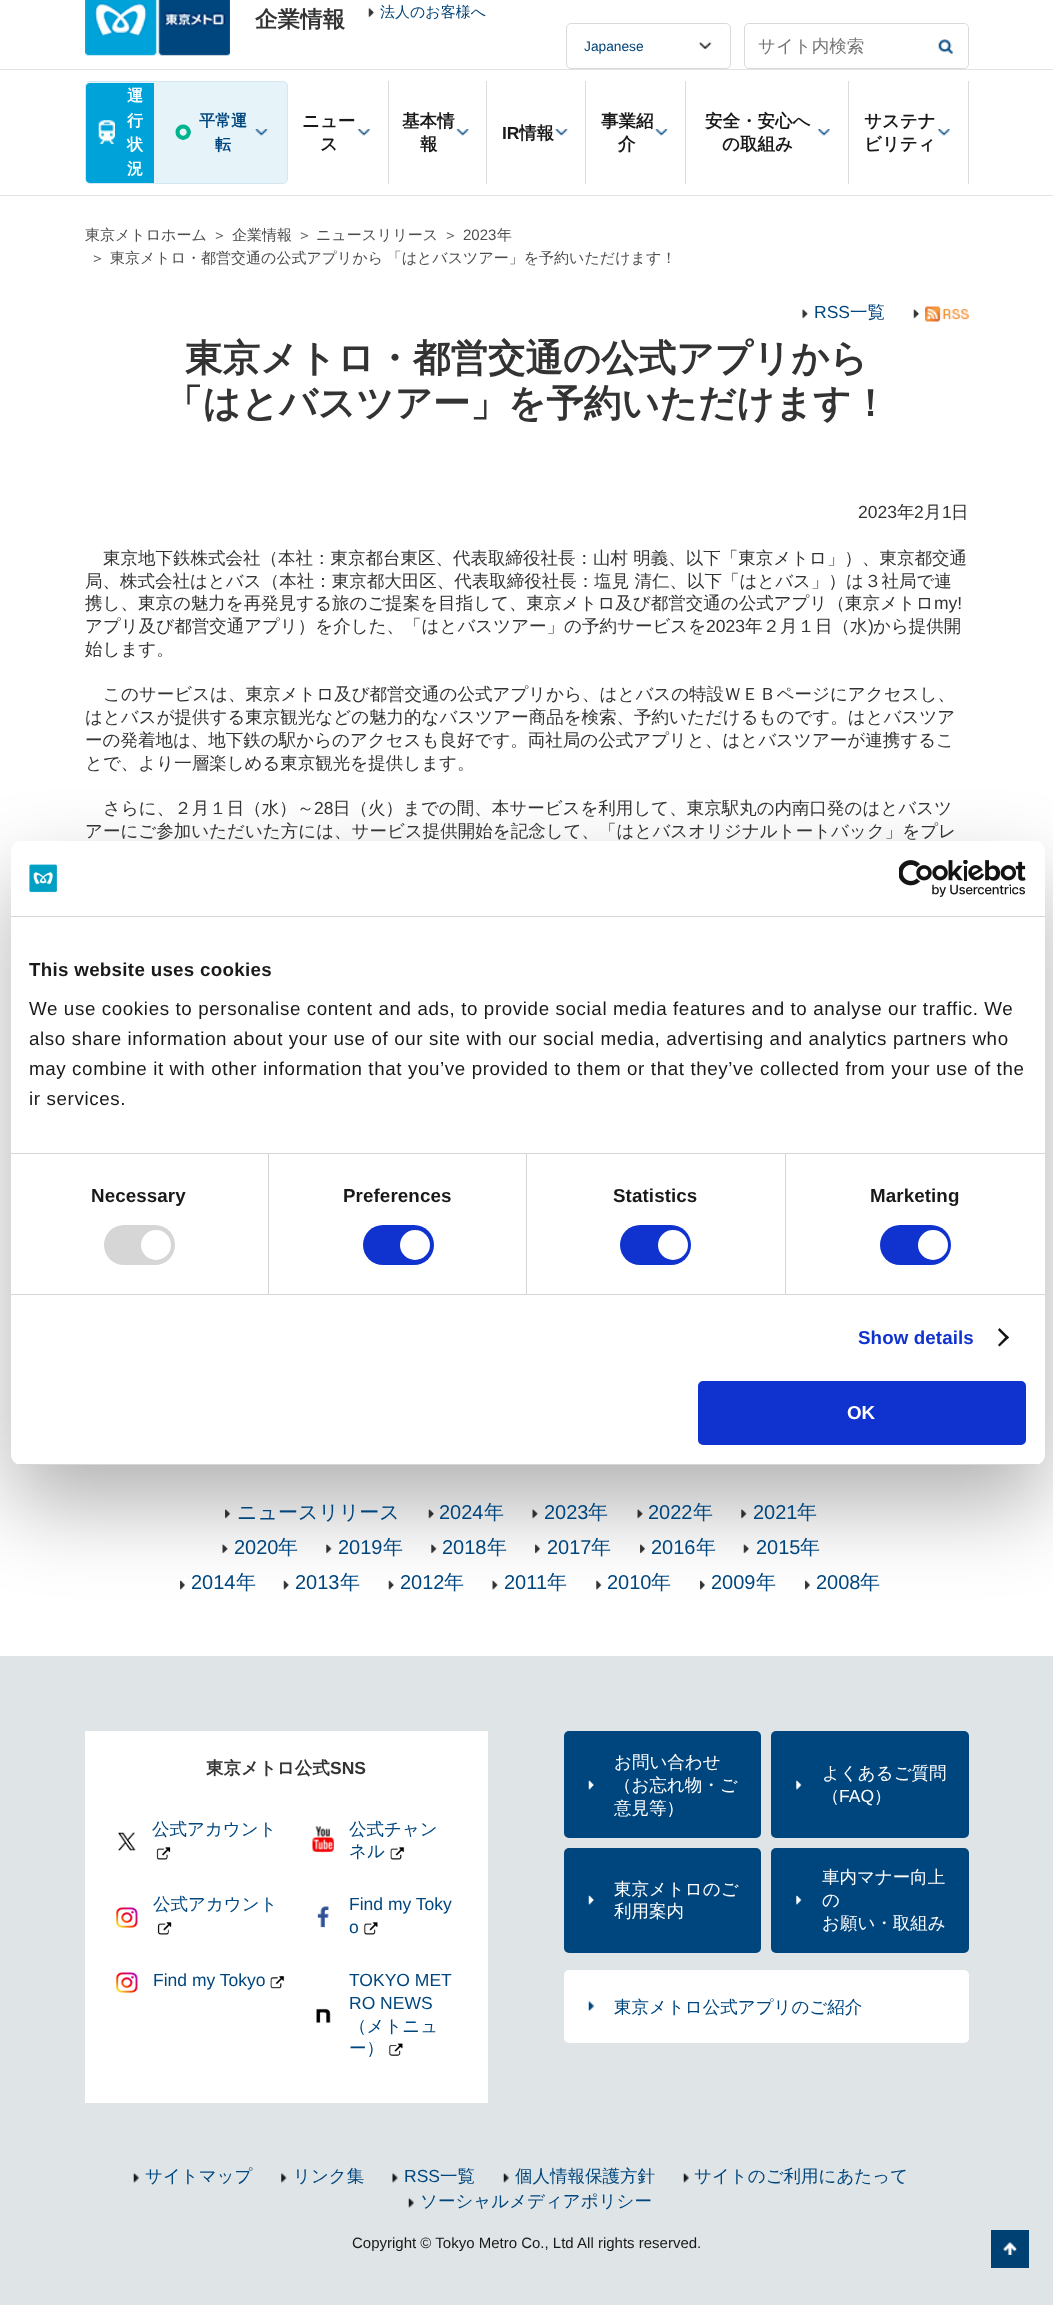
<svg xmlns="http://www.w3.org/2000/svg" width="1053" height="2305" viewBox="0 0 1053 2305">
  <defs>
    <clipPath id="clip1"><rect x="86" y="83" width="200" height="100" rx="4"/></clipPath>
    <clipPath id="clip2"><rect x="11" y="841" width="1034" height="624" rx="10"/></clipPath>
  </defs>
  <rect width="100%" height="100%" fill="#fff"/>
  <image x="368" y="7" width="6" height="10" href="img/1.png"/>
  <image x="698" y="42" width="14" height="7" href="img/2.png"/>
  <rect x="566.5" y="23.5" width="164" height="45" rx="4.5" fill="none" stroke="#dadada"/>
  <rect x="744.5" y="23.5" width="224" height="45" rx="4.5" fill="none" stroke="#dadada"/>
  <path d="M925 24H963C966 24 968 26 968 29V63C968 66 966 68 963 68H925Z" fill="#fff"/>
  <image x="938" y="39" width="16" height="15" href="img/3.png"/>
  <path d="M0 69h1053v1H0z" fill="#dfe4e6"/>
  <path d="M0 195h1053v1H0z" fill="#dfe4e6"/>
  <rect x="85.5" y="81.5" width="202" height="102" rx="4.5" fill="#e6f3f9" stroke="#d3e8f2"/>
  <g clip-path="url(#clip1)">
    <path d="M90 83H154V183H90C87 183 85 181 85 178V88C85 85 87 83 90 83Z" fill="#00a3d9"/>
  </g>
  <image x="98" y="120" width="17" height="24" href="img/4.png"/>
  <image x="175" y="124" width="16" height="16" href="img/5.png"/>
  <image x="255" y="129" width="13" height="7" href="img/6.png"/>
  <image x="357" y="129" width="13" height="7" href="img/7.png"/>
  <path d="M388 81h1v103H388z" fill="#dbdbdb"/>
  <image x="456" y="129" width="13" height="7" href="img/8.png"/>
  <path d="M486 81h1v103H486z" fill="#dbdbdb"/>
  <image x="555" y="129" width="13" height="7" href="img/9.png"/>
  <path d="M585 81h1v103H585z" fill="#dbdbdb"/>
  <image x="655" y="129" width="13" height="7" href="img/10.png"/>
  <path d="M685 81h1v103H685z" fill="#dbdbdb"/>
  <image x="817" y="129" width="13" height="7" href="img/7.png"/>
  <path d="M848 81h1v103H848z" fill="#dbdbdb"/>
  <image x="937" y="129" width="13" height="7" href="img/7.png"/>
  <path d="M968 81h1v103H968z" fill="#dbdbdb"/>
  <image x="85" y="0" width="145" height="56" href="img/11.png"/>
  <image x="802" y="309" width="6" height="10" href="img/12.png"/>
  <image x="913" y="309" width="6" height="10" href="img/13.png"/>
  <image x="925" y="306" width="44" height="16" href="img/14.png"/>
  <image x="225" y="1509" width="5" height="10" href="img/15.png"/>
  <image x="428" y="1509" width="6" height="10" href="img/16.png"/>
  <image x="532" y="1509" width="6" height="10" href="img/12.png"/>
  <image x="637" y="1509" width="6" height="10" href="img/12.png"/>
  <image x="741" y="1509" width="6" height="10" href="img/17.png"/>
  <image x="222" y="1544" width="6" height="10" href="img/12.png"/>
  <image x="326" y="1544" width="6" height="10" href="img/17.png"/>
  <image x="431" y="1544" width="6" height="10" href="img/17.png"/>
  <image x="535" y="1544" width="5" height="10" href="img/18.png"/>
  <image x="640" y="1544" width="5" height="10" href="img/18.png"/>
  <image x="743" y="1544" width="6" height="10" href="img/13.png"/>
  <image x="180" y="1580" width="5" height="10" href="img/19.png"/>
  <image x="283" y="1580" width="6" height="10" href="img/20.png"/>
  <image x="388" y="1580" width="6" height="10" href="img/21.png"/>
  <image x="492" y="1580" width="6" height="10" href="img/22.png"/>
  <image x="596" y="1580" width="6" height="10" href="img/23.png"/>
  <image x="700" y="1580" width="5" height="10" href="img/24.png"/>
  <image x="805" y="1580" width="5" height="10" href="img/24.png"/>
  <rect x="11" y="881" width="1034" height="624" rx="10" fill="#0000004d" filter="blur(42.5px)"/>
  <rect x="11" y="841" width="1034" height="624" rx="10" fill="#fff"/>
  <path d="M11 916h1034v1H11z" fill="#d6d6d6"/>
  <image x="29" y="864" width="28" height="29" href="img/25.png"/>
  <image x="899" y="860" width="127" height="37" href="img/26.png"/>
  <path d="M11 1153h1034v1H11z" fill="#d6d6d6"/>
  <path d="M11 1294h1034v1H11z" fill="#d6d6d6"/>
  <path d="M268 1154h1v140H268z" fill="#d6d6d6"/>
  <rect x="104" y="1225" width="71" height="40" rx="20" fill="#d6d6d6"/>
  <circle cx="156" cy="1245" r="15" fill="#fff"/>
  <path d="M526 1154h1v140H526z" fill="#d6d6d6"/>
  <rect x="363" y="1225" width="71" height="40" rx="20" fill="#1032cf"/>
  <circle cx="415" cy="1245" r="15" fill="#fff"/>
  <path d="M785 1154h1v140H785z" fill="#d6d6d6"/>
  <rect x="620" y="1225" width="71" height="40" rx="20" fill="#1032cf"/>
  <circle cx="673" cy="1245" r="15" fill="#fff"/>
  <rect x="880" y="1225" width="71" height="40" rx="20" fill="#1032cf"/>
  <circle cx="933" cy="1245" r="15" fill="#fff"/>
  <path d="M999.5 1328L1009 1337.5L1007 1339L998 1330Z" fill="#141414"/>
  <path d="M1007 1335.5L1009 1337.5L999.5 1346.5L998 1345Z" fill="#141414"/>
  <g clip-path="url(#clip2)">
    <path d="M11 1464h1034v1H11z" fill="#d6d6d6"/>
  </g>
  <rect x="699.5" y="1382.5" width="325" height="61" rx="3.5" fill="#1032cf" stroke="#1032cf" stroke-width="3"/>
  <path d="M0 1656h1053v649H0z" fill="#dfe4e6"/>
  <path d="M85 1731h403v372H85z" fill="#fff"/>
  <image x="156" y="1847" width="15" height="13" href="img/27.png"/>
  <image x="118" y="1832" width="18" height="19" href="img/28.png"/>
  <image x="312" y="1826" width="22" height="27" href="img/29.png"/>
  <image x="390" y="1847" width="15" height="13" href="img/30.png"/>
  <image x="157" y="1922" width="15" height="13" href="img/31.png"/>
  <image x="116" y="1907" width="22" height="21" href="img/32.png"/>
  <image x="317" y="1906" width="12" height="22" href="img/33.png"/>
  <image x="363" y="1922" width="15" height="13" href="img/34.png"/>
  <image x="116" y="1972" width="22" height="21" href="img/32.png"/>
  <image x="270" y="1976" width="15" height="13" href="img/35.png"/>
  <image x="316" y="2008" width="15" height="16" href="img/36.png"/>
  <image x="388" y="2043" width="15" height="13" href="img/37.png"/>
  <rect x="564" y="1731" width="197" height="107" rx="5" fill="#00467e"/>
  <image x="588" y="1780" width="6" height="10" href="img/38.png"/>
  <rect x="771" y="1731" width="198" height="107" rx="5" fill="#00467e"/>
  <image x="796" y="1780" width="6" height="10" href="img/39.png"/>
  <rect x="564" y="1848" width="197" height="105" rx="5" fill="#00467e"/>
  <image x="588" y="1895" width="6" height="10" href="img/38.png"/>
  <rect x="771" y="1848" width="198" height="105" rx="5" fill="#00467e"/>
  <image x="796" y="1895" width="6" height="10" href="img/39.png"/>
  <rect x="564" y="1970" width="405" height="73" rx="5" fill="#fff"/>
  <image x="588" y="2001" width="6" height="10" href="img/40.png"/>
  <image x="133" y="2172" width="6" height="11" href="img/41.png"/>
  <image x="281" y="2172" width="6" height="11" href="img/42.png"/>
  <image x="392" y="2172" width="6" height="11" href="img/43.png"/>
  <image x="503" y="2172" width="6" height="11" href="img/44.png"/>
  <image x="683" y="2172" width="6" height="11" href="img/41.png"/>
  <image x="408" y="2197" width="6" height="11" href="img/41.png"/>
  <path d="M991 2230h38v38H991z" fill="#004173"/>
  <image x="1003" y="2242" width="14" height="13" href="img/45.png"/>
  <text x="380" y="17" font-family="WenQuanYi Zen Hei" font-size="15" font-weight="500" fill="#004378">法人のお客様へ</text>
  <text x="584" y="51" font-family="Liberation Sans" font-size="13.75" fill="#004378">Japanese</text>
  <text x="758" y="52" font-family="WenQuanYi Zen Hei" font-size="17.5" font-weight="500" fill="#757575">サイト内検索</text>
  <g font-family="WenQuanYi Zen Hei" font-size="16" font-weight="bold" fill="#fff">
    <text x="127" y="101">運</text>
    <text x="127" y="126">行</text>
    <text x="127" y="150">状</text>
    <text x="127" y="174">況</text>
  </g>
  <g font-family="WenQuanYi Zen Hei" font-size="16" font-weight="bold" fill="#00467e">
    <text x="199" y="126">平常運</text>
    <text x="215" y="150">転</text>
  </g>
  <g font-family="WenQuanYi Zen Hei" font-size="17.5" font-weight="bold" fill="#191919">
    <text x="302" y="127">ニュー</text>
    <text x="320" y="150">ス</text>
    <text x="402" y="127">基本情</text>
    <text x="420" y="150">報</text>
  </g>
  <text x="502" y="139" font-family="Liberation Sans" font-size="17.5" font-weight="bold" fill="#191919">IR</text>
  <g font-family="WenQuanYi Zen Hei" font-size="17.5" font-weight="bold" fill="#191919">
    <text x="519" y="139">情報</text>
    <text x="601" y="127">事業紹</text>
    <text x="618" y="150">介</text>
    <text x="705" y="127">安全・安心へ</text>
    <text x="722" y="150">の取組み</text>
    <text x="864" y="127">サステナ</text>
    <text x="864" y="150">ビリティ</text>
  </g>
  <text x="255" y="27" font-family="WenQuanYi Zen Hei" font-size="22.5" font-weight="bold" fill="#333">企業情報</text>
  <g font-family="WenQuanYi Zen Hei" font-size="15" font-weight="500" fill="#4d4d4d">
    <text x="85" y="240">東京メトロホーム</text>
    <text x="212" y="240">＞</text>
    <text x="232" y="240">企業情報</text>
    <text x="297" y="240">＞</text>
    <text x="316" y="240">ニュースリリース</text>
    <text x="443" y="240">＞</text>
  </g>
  <text x="463" y="240" font-family="Liberation Sans" font-size="15" fill="#4d4d4d">2023</text>
  <g font-family="WenQuanYi Zen Hei" font-size="15" font-weight="500" fill="#4d4d4d">
    <text x="497" y="240">年</text>
    <text x="90" y="263">＞</text>
    <text x="110" y="263" word-spacing="-1">東京メトロ・都営交通の公式アプリから 「はとバスツアー」を予約いただけます！</text>
  </g>
  <text x="814" y="318" font-family="Liberation Sans" font-size="17.5" fill="#00467e">RSS</text>
  <text x="850" y="318" font-family="WenQuanYi Zen Hei" font-size="17.5" font-weight="500" fill="#00467e">一覧</text>
  <g font-family="WenQuanYi Zen Hei" font-size="37.5" font-weight="bold" fill="#333">
    <text x="185" y="371">東京メトロ・都営交通の公式アプリから</text>
    <text x="165" y="416">「はとバスツアー」を予約いただけます！</text>
  </g>
  <text x="858" y="518" font-family="Liberation Sans" font-size="17.5" fill="#333">2023</text>
  <text x="897" y="518" font-family="WenQuanYi Zen Hei" font-size="17.5" font-weight="500" fill="#333">年</text>
  <text x="914" y="518" font-family="Liberation Sans" font-size="17.5" fill="#333">2</text>
  <text x="924" y="518" font-family="WenQuanYi Zen Hei" font-size="17.5" font-weight="500" fill="#333">月</text>
  <text x="942" y="518" font-family="Liberation Sans" font-size="17.5" fill="#333">1</text>
  <g font-family="WenQuanYi Zen Hei" font-size="17.5" font-weight="500" fill="#333">
    <text x="951" y="518">日</text>
    <text x="103" y="564">東京地下鉄株式会社（本社：東京都台東区、代表取締役社長：山村 明義、以下「東京メトロ」）、東京都交通</text>
    <text x="85" y="587">局、株式会社はとバス（本社：東京都大田区、代表取締役社長：塩見 清仁、以下「はとバス」）は３社局で連</text>
    <text x="85" y="609">携し、東京の魅力を再発見する旅のご提案を目指して、東京メトロ及び都営交通の公式アプリ（東京メトロ</text>
  </g>
  <text x="934" y="609" font-family="Liberation Sans" font-size="17.5" fill="#333">my!</text>
  <text x="85" y="632" font-family="WenQuanYi Zen Hei" font-size="17.5" font-weight="500" fill="#333">アプリ及び都営交通アプリ）を介した、「はとバスツアー」の予約サービスを</text>
  <text x="706" y="632" font-family="Liberation Sans" font-size="17.5" fill="#333">2023</text>
  <text x="745" y="632" font-family="WenQuanYi Zen Hei" font-size="17.5" font-weight="500" fill="#333">年２月１日（水</text>
  <text x="868" y="632" font-family="Liberation Sans" font-size="17.5" fill="#333">)</text>
  <g font-family="WenQuanYi Zen Hei" font-size="17.5" font-weight="500" fill="#333">
    <text x="873" y="632">から提供開</text>
    <text x="85" y="655">始します。</text>
    <text x="103" y="700">このサービスは、東京メトロ及び都営交通の公式アプリから、はとバスの特設ＷＥＢページにアクセスし、</text>
    <text x="85" y="723">はとバスが提供する東京観光などの魅力的なバスツアー商品を検索、予約いただけるものです。はとバスツア</text>
    <text x="85" y="746">ーの発着地は、地下鉄の駅からのアクセスも良好です。両社局の公式アプリと、はとバスツアーが連携するこ</text>
    <text x="85" y="769">とで、より一層楽しめる東京観光を提供します。</text>
    <text x="103" y="814">さらに、２月１日（水）～</text>
  </g>
  <text x="314" y="814" font-family="Liberation Sans" font-size="17.5" fill="#333">28</text>
  <g font-family="WenQuanYi Zen Hei" font-size="17.5" font-weight="500" fill="#333">
    <text x="333" y="814">日（火）までの間、本サービスを利用して、東京駅丸の内南口発のはとバスツ</text>
    <text x="85" y="837">アーにご参加いただいた方には、サービス提供開始を記念して、「はとバスオリジナルトートバック」をプレ</text>
  </g>
  <text x="237" y="1519" font-family="WenQuanYi Zen Hei" font-size="20" font-weight="500" fill="#00467e">ニュースリリース</text>
  <text x="439" y="1519" font-family="Liberation Sans" font-size="20" fill="#00467e">2024</text>
  <text x="484" y="1519" font-family="WenQuanYi Zen Hei" font-size="20" font-weight="500" fill="#00467e">年</text>
  <text x="544" y="1519" font-family="Liberation Sans" font-size="20" fill="#00467e">2023</text>
  <text x="588" y="1519" font-family="WenQuanYi Zen Hei" font-size="20" font-weight="500" fill="#00467e">年</text>
  <text x="648" y="1519" font-family="Liberation Sans" font-size="20" fill="#00467e">2022</text>
  <text x="693" y="1519" font-family="WenQuanYi Zen Hei" font-size="20" font-weight="500" fill="#00467e">年</text>
  <text x="753" y="1519" font-family="Liberation Sans" font-size="20" fill="#00467e">2021</text>
  <text x="797" y="1519" font-family="WenQuanYi Zen Hei" font-size="20" font-weight="500" fill="#00467e">年</text>
  <text x="234" y="1554" font-family="Liberation Sans" font-size="20" fill="#00467e">2020</text>
  <text x="278" y="1554" font-family="WenQuanYi Zen Hei" font-size="20" font-weight="500" fill="#00467e">年</text>
  <text x="338" y="1554" font-family="Liberation Sans" font-size="20" fill="#00467e">2019</text>
  <text x="383" y="1554" font-family="WenQuanYi Zen Hei" font-size="20" font-weight="500" fill="#00467e">年</text>
  <text x="442" y="1554" font-family="Liberation Sans" font-size="20" fill="#00467e">2018</text>
  <text x="487" y="1554" font-family="WenQuanYi Zen Hei" font-size="20" font-weight="500" fill="#00467e">年</text>
  <text x="547" y="1554" font-family="Liberation Sans" font-size="20" fill="#00467e">2017</text>
  <text x="591" y="1554" font-family="WenQuanYi Zen Hei" font-size="20" font-weight="500" fill="#00467e">年</text>
  <text x="651" y="1554" font-family="Liberation Sans" font-size="20" fill="#00467e">2016</text>
  <text x="696" y="1554" font-family="WenQuanYi Zen Hei" font-size="20" font-weight="500" fill="#00467e">年</text>
  <text x="756" y="1554" font-family="Liberation Sans" font-size="20" fill="#00467e">2015</text>
  <text x="800" y="1554" font-family="WenQuanYi Zen Hei" font-size="20" font-weight="500" fill="#00467e">年</text>
  <text x="191" y="1589" font-family="Liberation Sans" font-size="20" fill="#00467e">2014</text>
  <text x="236" y="1589" font-family="WenQuanYi Zen Hei" font-size="20" font-weight="500" fill="#00467e">年</text>
  <text x="295" y="1589" font-family="Liberation Sans" font-size="20" fill="#00467e">2013</text>
  <text x="340" y="1589" font-family="WenQuanYi Zen Hei" font-size="20" font-weight="500" fill="#00467e">年</text>
  <text x="400" y="1589" font-family="Liberation Sans" font-size="20" fill="#00467e">2012</text>
  <text x="444" y="1589" font-family="WenQuanYi Zen Hei" font-size="20" font-weight="500" fill="#00467e">年</text>
  <text x="504" y="1589" font-family="Liberation Sans" font-size="20" fill="#00467e">2011</text>
  <text x="547" y="1589" font-family="WenQuanYi Zen Hei" font-size="20" font-weight="500" fill="#00467e">年</text>
  <text x="607" y="1589" font-family="Liberation Sans" font-size="20" fill="#00467e">2010</text>
  <text x="651" y="1589" font-family="WenQuanYi Zen Hei" font-size="20" font-weight="500" fill="#00467e">年</text>
  <text x="711" y="1589" font-family="Liberation Sans" font-size="20" fill="#00467e">2009</text>
  <text x="756" y="1589" font-family="WenQuanYi Zen Hei" font-size="20" font-weight="500" fill="#00467e">年</text>
  <text x="816" y="1589" font-family="Liberation Sans" font-size="20" fill="#00467e">2008</text>
  <text x="860" y="1589" font-family="WenQuanYi Zen Hei" font-size="20" font-weight="500" fill="#00467e">年</text>
  <text x="29" y="976" font-family="Liberation Sans" font-size="18.75" font-weight="bold" letter-spacing="0.3" fill="#191919">This website uses cookies</text>
  <g font-family="Liberation Sans" font-size="18.75" letter-spacing="0.62" fill="#191919">
    <text x="29" y="1015">We use cookies to personalise content and ads, to provide social media features and to analyse our traffic. We</text>
    <text x="29" y="1045">also share information about your use of our site with our social media, advertising and analytics partners who</text>
    <text x="29" y="1075">may combine it with other information that you’ve provided to them or that they’ve collected from your use of the</text>
    <text x="29" y="1105">ir services.</text>
  </g>
  <g font-family="Liberation Sans" font-size="18.75" font-weight="bold" letter-spacing="0.1" fill="#191919">
    <text x="91" y="1202">Necessary</text>
    <text x="343" y="1202">Preferences</text>
    <text x="613" y="1202">Statistics</text>
    <text x="870" y="1202">Marketing</text>
  </g>
  <text x="858" y="1344" font-family="Liberation Sans" font-size="18.75" font-weight="bold" letter-spacing="0.1" fill="#1032cf">Show details</text>
  <text x="847" y="1419" font-family="Liberation Sans" font-size="18.75" font-weight="bold" fill="#fff">OK</text>
  <text x="206" y="1774" font-family="WenQuanYi Zen Hei" font-size="17.5" font-weight="bold" fill="#333">東京メトロ公式</text>
  <text x="330" y="1774" font-family="Liberation Sans" font-size="17.5" font-weight="bold" fill="#333">SNS</text>
  <g font-family="WenQuanYi Zen Hei" font-size="17.5" font-weight="500" fill="#00467e">
    <text x="152" y="1835">公式アカウント</text>
    <text x="349" y="1835">公式チャン</text>
    <text x="349" y="1857">ネル</text>
    <text x="153" y="1910">公式アカウント</text>
  </g>
  <g font-family="Liberation Sans" font-size="17.5" fill="#00467e">
    <text x="349" y="1910">Find my Toky</text>
    <text x="349" y="1933">o</text>
    <text x="153" y="1986">Find my Tokyo</text>
    <text x="349" y="1986">TOKYO MET</text>
    <text x="349" y="2009">RO NEWS</text>
  </g>
  <g font-family="WenQuanYi Zen Hei" font-size="17.5" font-weight="500" fill="#00467e">
    <text x="349" y="2032">（メトニュ</text>
    <text x="349" y="2054">ー）</text>
  </g>
  <g font-family="WenQuanYi Zen Hei" font-size="17.5" font-weight="500" fill="#fff">
    <text x="614" y="1768">お問い合わせ</text>
    <text x="614" y="1791">（お忘れ物・ご</text>
    <text x="614" y="1814">意見等）</text>
    <text x="822" y="1779">よくあるご質問</text>
    <text x="822" y="1802">（</text>
  </g>
  <text x="839" y="1802" font-family="Liberation Sans" font-size="17.5" fill="#fff">FAQ</text>
  <g font-family="WenQuanYi Zen Hei" font-size="17.5" font-weight="500" fill="#fff">
    <text x="874" y="1802">）</text>
    <text x="614" y="1895">東京メトロのご</text>
    <text x="614" y="1917">利用案内</text>
    <text x="822" y="1883">車内マナー向上</text>
    <text x="822" y="1906">の</text>
    <text x="822" y="1929">お願い・取組み</text>
  </g>
  <g font-family="WenQuanYi Zen Hei" font-size="17.5" font-weight="500" fill="#00467e">
    <text x="614" y="2013">東京メトロ公式アプリのご紹介</text>
    <text x="145" y="2182">サイトマップ</text>
    <text x="293" y="2182">リンク集</text>
  </g>
  <text x="404" y="2182" font-family="Liberation Sans" font-size="17.5" fill="#00467e">RSS</text>
  <g font-family="WenQuanYi Zen Hei" font-size="17.5" font-weight="500" fill="#00467e">
    <text x="440" y="2182">一覧</text>
    <text x="515" y="2182">個人情報保護方針</text>
    <text x="694" y="2182">サイトのご利用にあたって</text>
    <text x="420" y="2207">ソーシャルメディアポリシー</text>
  </g>
  <text x="352" y="2248" font-family="Liberation Sans" font-size="15" fill="#191919">Copyright © Tokyo Metro Co., Ltd All rights reserved.</text>
</svg>
